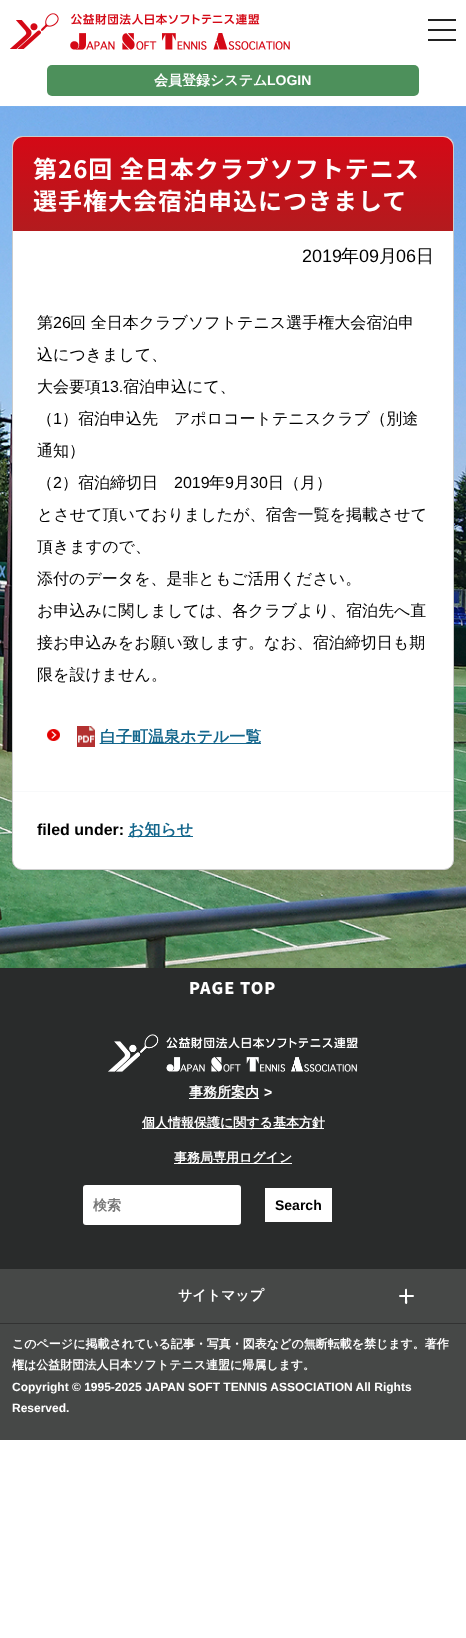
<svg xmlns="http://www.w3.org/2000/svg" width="466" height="1638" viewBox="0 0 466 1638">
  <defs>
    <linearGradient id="g1" gradientUnits="userSpaceOnUse" x1="233" y1="137" x2="233" y2="231"><stop offset="0" stop-color="#d40916"/><stop offset="1" stop-color="#b31b1e"/></linearGradient>
  </defs>
  <rect width="100%" height="100%" fill="#fff"/>
  <image x="10" y="13" width="280" height="37" href="img/1.png"/>
  <path d="M428 29h28v2H428z" fill="#222"/>
  <path d="M428 19h28v2H428z" fill="#222"/>
  <path d="M428 39h28v2H428z" fill="#222"/>
  <rect x="47" y="65" width="372" height="31" rx="5" fill="#4d905b"/>
  <image x="0" y="106" width="466" height="862" href="img/2.png"/>
  <rect x="12.5" y="136.5" width="441" height="733" rx="9.5" fill="#fff" stroke="#ccc"/>
  <path d="M23 137H443C448.5 137 453 141.5 453 147V231H13V147C13 141.5 17.5 137 23 137Z" fill="url(#g1)"/>
  <image x="47" y="729" width="13" height="12" href="img/3.png"/>
  <image x="77" y="726" width="23" height="21" href="img/4.png"/>
  <path d="M100 743h161v1H100z" fill="#13668c"/>
  <path d="M13 791h440v1H13z" fill="#f8f9fa"/>
  <path d="M128 836h65v1H128z" fill="#13668c"/>
  <path d="M0 968h466v301H0z" fill="#292b2b"/>
  <path d="M0 1269h466v171H0z" fill="#464847"/>
  <image x="108" y="1034" width="250" height="38" href="img/5.png"/>
  <path d="M189 1098h70v1H189z" fill="#fff"/>
  <path d="M142 1128h182v1H142z" fill="#fff"/>
  <path d="M174 1163h118v1H174z" fill="#fff"/>
  <rect x="83" y="1185" width="158" height="40" rx="3" fill="#fff"/>
  <path d="M265 1188h67v34H265z" fill="#fff"/>
  <path d="M0 1323h466v1H0z" fill="#323232"/>
  <rect x="399" y="1295" width="15" height="2" rx="1" fill="#fff"/>
  <path d="M407 1290V1298.5C407 1299.5 408 1303.5 406.5 1304C404.5 1304 405 1301.5 405 1300.5V1289.5C405.5 1288.5 407 1288.5 407 1290Z" fill="#fff"/>
  <text x="154" y="85" font-family="WenQuanYi Zen Hei" font-size="14" font-weight="bold" fill="#fff">会員登録システム</text>
  <text x="267" y="85" font-family="Liberation Sans" font-size="14" font-weight="bold" fill="#fff">LOGIN</text>
  <g font-family="Noto Sans JP" font-size="24" font-weight="bold" letter-spacing="1" fill="#fff">
    <text x="33" y="178">第26回 全日本クラブソフトテニス</text>
    <text x="33" y="210">選手権大会宿泊申込につきまして</text>
  </g>
  <text x="302" y="262" font-family="Liberation Sans" font-size="18" fill="#000">2019</text>
  <text x="341" y="262" font-family="WenQuanYi Zen Hei" font-size="18" font-weight="500" fill="#000">年</text>
  <text x="359" y="262" font-family="Liberation Sans" font-size="18" fill="#000">09</text>
  <text x="379" y="262" font-family="WenQuanYi Zen Hei" font-size="18" font-weight="500" fill="#000">月</text>
  <text x="396" y="262" font-family="Liberation Sans" font-size="18" fill="#000">06</text>
  <text x="416" y="262" font-family="WenQuanYi Zen Hei" font-size="18" font-weight="500" fill="#000">日</text>
  <text x="37" y="328" font-family="WenQuanYi Zen Hei" font-size="16" font-weight="500" fill="#000">第</text>
  <text x="53" y="328" font-family="Liberation Sans" font-size="16" fill="#000">26</text>
  <g font-family="WenQuanYi Zen Hei" font-size="16" font-weight="500" fill="#000">
    <text x="70" y="328">回 全日本クラブソフトテニス選手権大会宿泊申</text>
    <text x="37" y="360">込につきまして、</text>
    <text x="37" y="392">大会要項</text>
  </g>
  <text x="101" y="392" font-family="Liberation Sans" font-size="16" fill="#000">13.</text>
  <g font-family="WenQuanYi Zen Hei" font-size="16" font-weight="500" fill="#000">
    <text x="123" y="392">宿泊申込にて、</text>
    <text x="37" y="424">（</text>
  </g>
  <text x="53" y="424" font-family="Liberation Sans" font-size="16" fill="#000">1</text>
  <g font-family="WenQuanYi Zen Hei" font-size="16" font-weight="500" fill="#000">
    <text x="62" y="424">）宿泊申込先　アポロコートテニスクラブ（別途</text>
    <text x="37" y="456">通知）</text>
    <text x="37" y="488">（</text>
  </g>
  <text x="53" y="488" font-family="Liberation Sans" font-size="16" fill="#000">2</text>
  <text x="62" y="488" font-family="WenQuanYi Zen Hei" font-size="16" font-weight="500" fill="#000">）宿泊締切日</text>
  <text x="174" y="488" font-family="Liberation Sans" font-size="16" fill="#000">2019</text>
  <text x="209" y="488" font-family="WenQuanYi Zen Hei" font-size="16" font-weight="500" fill="#000">年</text>
  <text x="225" y="488" font-family="Liberation Sans" font-size="16" fill="#000">9</text>
  <text x="234" y="488" font-family="WenQuanYi Zen Hei" font-size="16" font-weight="500" fill="#000">月</text>
  <text x="250" y="488" font-family="Liberation Sans" font-size="16" fill="#000">30</text>
  <g font-family="WenQuanYi Zen Hei" font-size="16" font-weight="500" fill="#000">
    <text x="268" y="488">日（月）</text>
    <text x="37" y="520">とさせて頂いておりましたが、宿舎一覧を掲載させて</text>
    <text x="37" y="552">頂きますので、</text>
    <text x="37" y="584">添付のデータを、是非ともご活用ください。</text>
    <text x="37" y="616">お申込みに関しましては、各クラブより、宿泊先へ直</text>
    <text x="37" y="648">接お申込みをお願い致します。なお、宿泊締切日も期</text>
    <text x="37" y="680">限を設けません。</text>
  </g>
  <text x="100" y="742" font-family="WenQuanYi Zen Hei" font-size="16" font-weight="bold" fill="#13668c">白子町温泉ホテル一覧</text>
  <text x="37" y="835" font-family="Liberation Sans" font-size="16" font-weight="bold" fill="#000">filed under:</text>
  <text x="128" y="835" font-family="WenQuanYi Zen Hei" font-size="16" font-weight="bold" fill="#13668c">お知らせ</text>
  <text x="189" y="994" font-family="Noto Sans JP" font-size="16" font-weight="900" letter-spacing="1" fill="#fff">PAGE TOP</text>
  <text x="189" y="1097" font-family="WenQuanYi Zen Hei" font-size="14" font-weight="bold" fill="#fff">事務所案内</text>
  <text x="264" y="1097" font-family="Liberation Sans" font-size="14" font-weight="bold" fill="#fff">&gt;</text>
  <g font-family="WenQuanYi Zen Hei" font-size="13" font-weight="bold" fill="#fff">
    <text x="142" y="1127">個人情報保護に関する基本方針</text>
    <text x="174" y="1162">事務局専用ログイン</text>
  </g>
  <text x="93" y="1210" font-family="WenQuanYi Zen Hei" font-size="14" font-weight="bold" fill="#757575">検索</text>
  <text x="275" y="1210" font-family="Liberation Sans" font-size="14" font-weight="bold" fill="#000">Search</text>
  <text x="178" y="1300" font-family="WenQuanYi Zen Hei" font-size="14" font-weight="bold" fill="#fff">サイトマップ</text>
  <g font-family="WenQuanYi Zen Hei" font-size="12" font-weight="bold" fill="#fff">
    <text x="12" y="1348">このページに掲載されている記事・写真・図表などの無断転載を禁じます。著作</text>
    <text x="12" y="1369">権は公益財団法人日本ソフトテニス連盟に帰属します。</text>
  </g>
  <g font-family="Liberation Sans" font-size="12" font-weight="bold" fill="#fff">
    <text x="12" y="1391">Copyright © 1995-2025 JAPAN SOFT TENNIS ASSOCIATION All Rights</text>
    <text x="12" y="1412">Reserved.</text>
  </g>
</svg>
